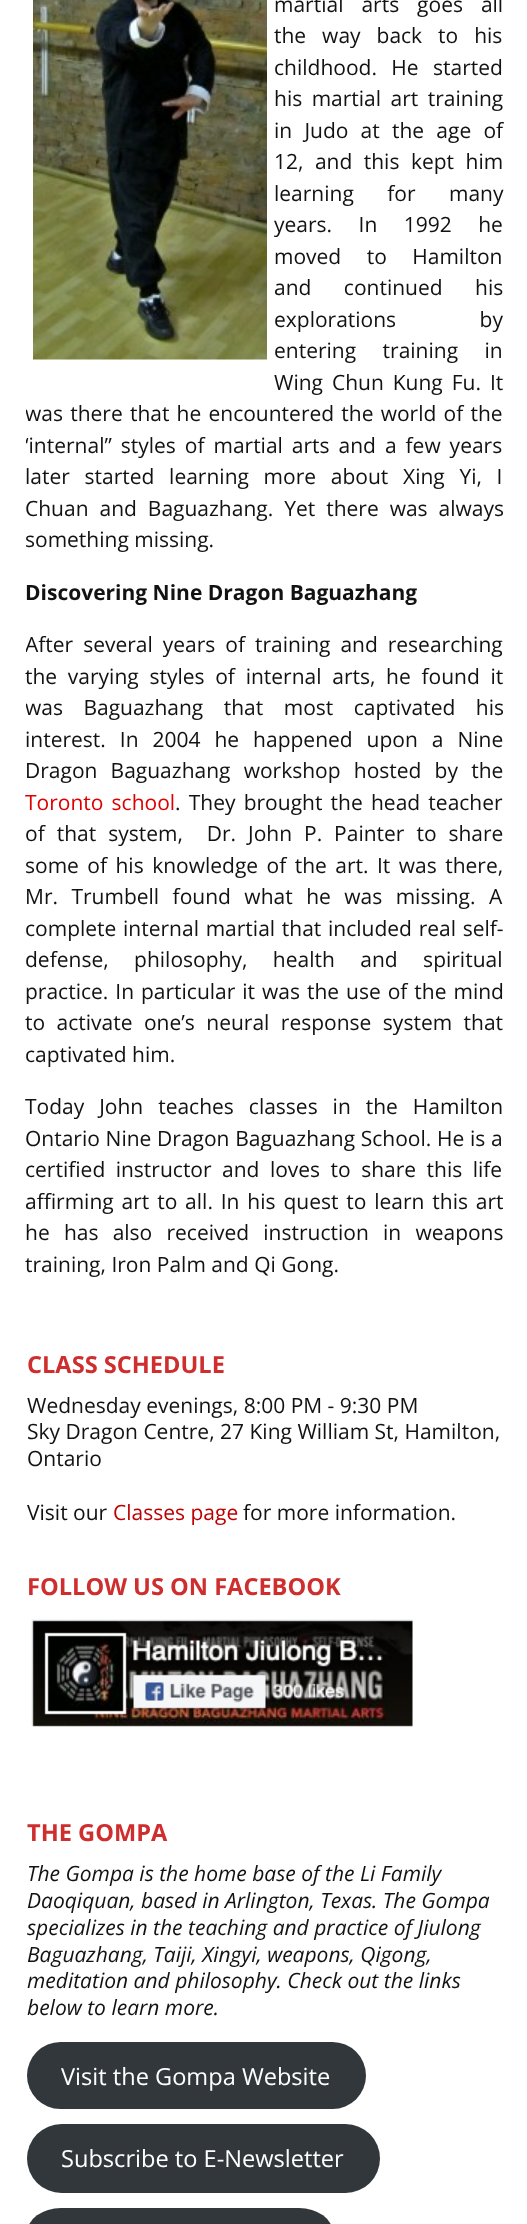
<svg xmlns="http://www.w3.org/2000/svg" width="527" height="2224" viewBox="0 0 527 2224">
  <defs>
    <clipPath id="clip1"><path d="M26 0h477v1301H26z"/></clipPath>
  </defs>
  <rect width="100%" height="100%" fill="#fff"/>
  <image x="33" y="0" width="234" height="360" href="img/1.png"/>
  <image x="31" y="1619" width="382" height="108" href="img/2.png"/>
  <rect x="27" y="2042" width="339" height="67" rx="33.5" fill="#32373c"/>
  <rect x="27" y="2124" width="353" height="69" rx="34.5" fill="#32373c"/>
  <rect x="27" y="2208" width="306" height="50" rx="34" fill="#32373c"/>
  <g font-family="Open Sans" font-size="21" fill="#121212">
    <text x="274" y="12" word-spacing="12.5">martial arts goes all</text>
    <text x="274" y="43" word-spacing="10.5">the way back to his</text>
    <text x="274" y="75" word-spacing="9">childhood. He started</text>
    <text x="274" y="106" word-spacing="4">his martial art training</text>
    <text x="274" y="138" word-spacing="6.75">in Judo at the age of</text>
    <text x="274" y="169" word-spacing="6">12, and this kept him</text>
    <text x="274" y="201" word-spacing="28">learning for many</text>
    <text x="274" y="232" word-spacing="21">years. In 1992 he</text>
    <text x="274" y="264" word-spacing="20">moved to Hamilton</text>
    <text x="274" y="295" word-spacing="27">and continued his</text>
    <text x="274" y="327" word-spacing="78">explorations by</text>
    <text x="274" y="358" word-spacing="21">entering training in</text>
    <text x="274" y="390" word-spacing="3.5">Wing Chun Kung Fu. It</text>
  </g>
  <g clip-path="url(#clip1)">
    <g font-family="Open Sans" font-size="21" fill="#121212">
      <text x="25" y="421" word-spacing="1.75">was there that he encountered the world of the</text>
      <text x="25" y="453" word-spacing="3.5">‘internal” styles of martial arts and a few years</text>
    </g>
  </g>
  <g font-family="Open Sans" font-size="21" fill="#121212">
    <text x="25" y="484" word-spacing="9.25">later started learning more about Xing Yi, I</text>
    <text x="25" y="516" word-spacing="5.5">Chuan and Baguazhang. Yet there was always</text>
    <text x="25" y="547">something missing.</text>
  </g>
  <text x="25" y="600" font-family="Open Sans" font-size="21" font-weight="bold" fill="#121212">Discovering Nine Dragon Baguazhang</text>
  <g clip-path="url(#clip1)">
    <text x="25" y="652" word-spacing="4.5" font-family="Open Sans" font-size="21" fill="#121212">After several years of training and researching</text>
  </g>
  <text x="25" y="684" word-spacing="5.25" font-family="Open Sans" font-size="21" fill="#121212">the varying styles of internal arts, he found it</text>
  <g clip-path="url(#clip1)">
    <text x="25" y="715" word-spacing="15" font-family="Open Sans" font-size="21" fill="#121212">was Baguazhang that most captivated his</text>
  </g>
  <g font-family="Open Sans" font-size="21" fill="#121212">
    <text x="25" y="747" word-spacing="8.5">interest. In 2004 he happened upon a Nine</text>
    <text x="25" y="778" word-spacing="7.75">Dragon Baguazhang workshop hosted by the</text>
  </g>
  <text x="25" y="810" word-spacing="2.75" font-family="Open Sans" font-size="21" fill="#d00">Toronto school</text>
  <g font-family="Open Sans" font-size="21" fill="#121212">
    <text x="175" y="810" word-spacing="2.75">. They brought the head teacher</text>
    <text x="25" y="841" word-spacing="6.5" xml:space="preserve">of that system,  Dr. John P. Painter to share</text>
    <text x="25" y="873" word-spacing="3">some of his knowledge of the art. It was there,</text>
    <text x="25" y="904" word-spacing="8">Mr. Trumbell found what he was missing. A</text>
    <text x="25" y="936" word-spacing="1.25">complete internal martial that included real self-</text>
    <text x="25" y="967" word-spacing="20">defense, philosophy, health and spiritual</text>
    <text x="25" y="999" word-spacing="1.5">practice. In particular it was the use of the mind</text>
    <text x="25" y="1030" word-spacing="6">to activate one’s neural response system that</text>
    <text x="25" y="1062">captivated him.</text>
    <text x="25" y="1114" word-spacing="9.5">Today John teaches classes in the Hamilton</text>
    <text x="25" y="1146" word-spacing="0.25">Ontario Nine Dragon Baguazhang School. He is a</text>
    <text x="25" y="1177" word-spacing="5">certified instructor and loves to share this life</text>
    <text x="25" y="1209" word-spacing="2.4">affirming art to all. In his quest to learn this art</text>
    <text x="25" y="1240" word-spacing="8.75">he has also received instruction in weapons</text>
    <text x="25" y="1272">training, Iron Palm and Qi Gong.</text>
  </g>
  <text x="27" y="1373" font-family="Open Sans" font-size="23.6" font-weight="bold" fill="#cf2e2e">CLASS SCHEDULE</text>
  <g font-family="Open Sans" font-size="21" fill="#121212">
    <text x="27" y="1413">Wednesday evenings, 8:00 PM - 9:30 PM</text>
    <text x="27" y="1439">Sky Dragon Centre, 27 King William St, Hamilton,</text>
    <text x="27" y="1466">Ontario</text>
    <text x="27" y="1520">Visit our</text>
  </g>
  <text x="113" y="1520" font-family="Open Sans" font-size="21" fill="#bc0000">Classes page</text>
  <text x="243" y="1520" font-family="Open Sans" font-size="21" fill="#121212">for more information.</text>
  <g font-family="Open Sans" font-size="23.6" font-weight="bold" fill="#cf2e2e">
    <text x="27" y="1595">FOLLOW US ON FACEBOOK</text>
    <text x="27" y="1841">THE GOMPA</text>
  </g>
  <g font-family="Open Sans" font-size="21" font-style="italic" fill="#121212">
    <text x="27" y="1881">The Gompa is the home base of the Li Family</text>
    <text x="27" y="1908">Daoqiquan, based in Arlington, Texas. The Gompa</text>
    <text x="27" y="1935">specializes in the teaching and practice of Jiulong</text>
    <text x="27" y="1962">Baguazhang, Taiji, Xingyi, weapons, Qigong,</text>
    <text x="27" y="1988">meditation and philosophy. Check out the links</text>
    <text x="27" y="2015">below to learn more.</text>
  </g>
  <g font-family="Open Sans" font-size="23.6" fill="#fff">
    <text x="61" y="2085">Visit the Gompa Website</text>
    <text x="61" y="2167">Subscribe to E-Newsletter</text>
  </g>
</svg>
